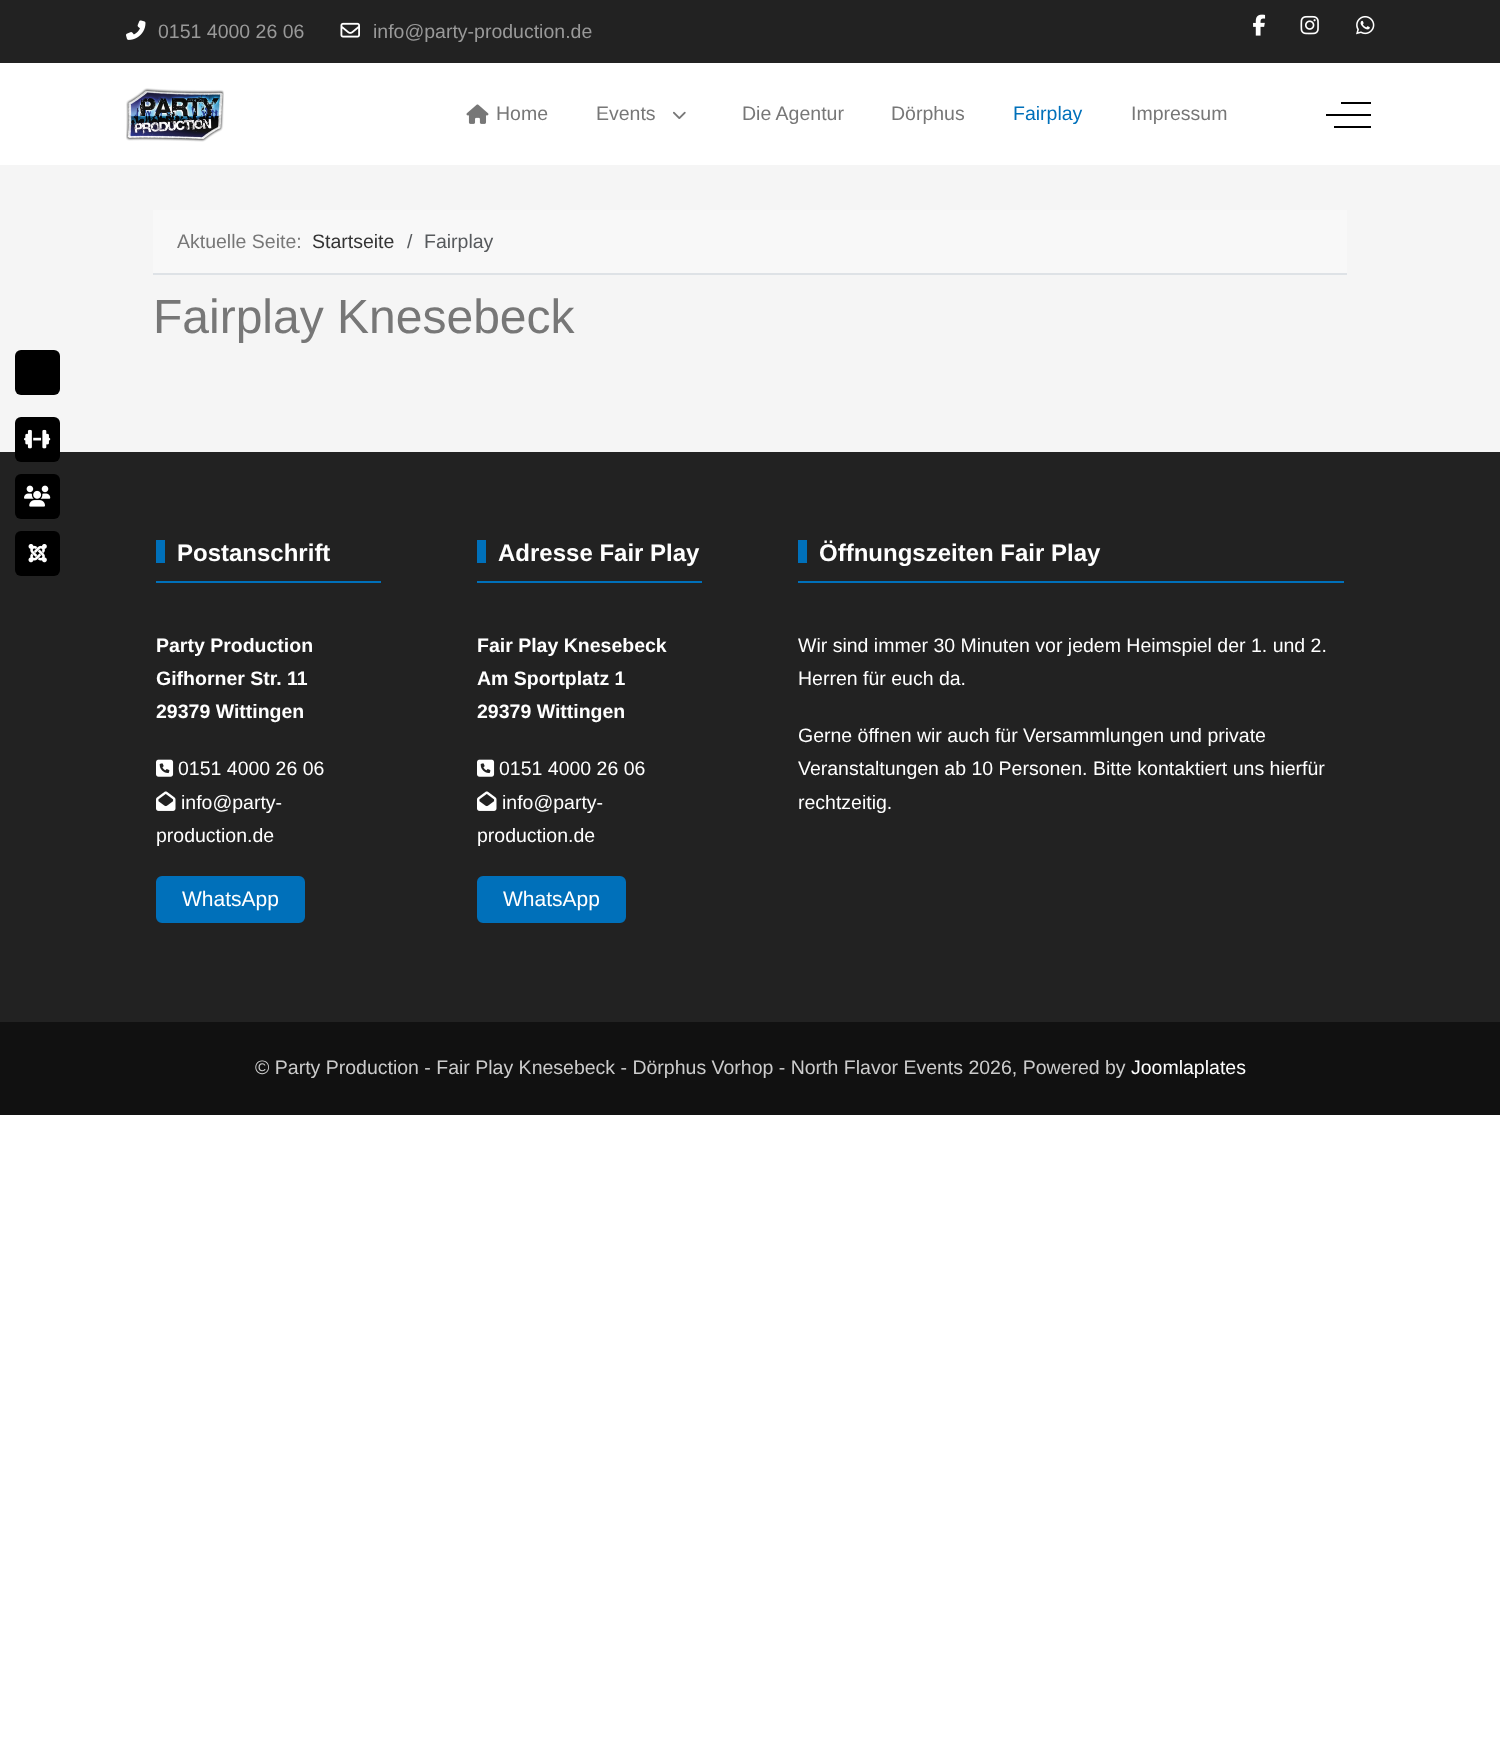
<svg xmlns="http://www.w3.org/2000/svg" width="1500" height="1747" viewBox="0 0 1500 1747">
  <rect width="100%" height="100%" fill="#fff"/>
  <path d="M0 0h1500v63H0z" fill="#222"/>
  <image x="126" y="20" width="20" height="20" href="img/1.png"/>
  <image x="340" y="22" width="20" height="16" href="img/2.png"/>
  <image x="1253" y="14" width="13" height="22" href="img/3.png"/>
  <image x="1300" y="15" width="19" height="20" href="img/4.png"/>
  <image x="1356" y="15" width="19" height="20" href="img/5.png"/>
  <image x="126" y="88" width="98" height="54" href="img/6.png"/>
  <image x="466" y="104" width="23" height="20" href="img/7.png"/>
  <image x="673" y="111" width="13" height="8" href="img/8.png"/>
  <path d="M1326 114h45v2H1326z" fill="#000"/>
  <path d="M1341 102h30v2H1341z" fill="#000"/>
  <path d="M1334 126h37v2H1334z" fill="#000"/>
  <path d="M0 165h1500v287H0z" fill="#f5f5f5"/>
  <path d="M153 210h1194v63H153z" fill="#f8f8f8"/>
  <path d="M153 273h1194v2H153z" fill="#dee2e6"/>
  <rect x="15" y="350" width="45" height="45" rx="6" fill="#000"/>
  <path d="M0 452h1500v570H0z" fill="#222"/>
  <rect x="15" y="417" width="45" height="45" rx="6" fill="#000"/>
  <image x="24" y="429" width="27" height="20" href="img/9.png"/>
  <rect x="15" y="474" width="45" height="45" rx="6" fill="#000"/>
  <image x="24" y="485" width="27" height="22" href="img/10.png"/>
  <rect x="15" y="531" width="45" height="45" rx="6" fill="#000"/>
  <image x="28" y="544" width="19" height="19" href="img/11.png"/>
  <path d="M156 581h225v2H156z" fill="#0070ba"/>
  <path d="M156 540h9v23H156z" fill="#0070ba"/>
  <image x="156" y="759" width="18" height="18" href="img/12.png"/>
  <image x="156" y="791" width="20" height="20" href="img/13.png"/>
  <rect x="157" y="877" width="147" height="45" rx="5" fill="#0070ba" stroke="#0070ba" stroke-width="2"/>
  <path d="M477 581h225v2H477z" fill="#0070ba"/>
  <path d="M477 540h9v23H477z" fill="#0070ba"/>
  <image x="477" y="759" width="18" height="18" href="img/12.png"/>
  <image x="477" y="791" width="20" height="20" href="img/13.png"/>
  <rect x="478" y="877" width="147" height="45" rx="5" fill="#0070ba" stroke="#0070ba" stroke-width="2"/>
  <path d="M798 581h546v2H798z" fill="#0070ba"/>
  <path d="M798 540h9v23H798z" fill="#0070ba"/>
  <path d="M0 1022h1500v93H0z" fill="#111"/>
  <g font-family="Liberation Sans" font-size="19.5" fill="#999">
    <text x="158" y="38">0151 4000 26 06</text>
    <text x="373" y="38">info@party-production.de</text>
  </g>
  <g font-family="Liberation Sans" font-size="19.5" fill="#777">
    <text x="496" y="120">Home</text>
    <text x="596" y="120">Events</text>
    <text x="742" y="120">Die Agentur</text>
    <text x="891" y="120">Dörphus</text>
  </g>
  <text x="1013" y="120" font-family="Liberation Sans" font-size="19.5" fill="#0070ba">Fairplay</text>
  <g font-family="Liberation Sans" font-size="19.5" fill="#777">
    <text x="1131" y="120">Impressum</text>
    <text x="177" y="248">Aktuelle Seite:</text>
  </g>
  <text x="312" y="248" font-family="Liberation Sans" font-size="19.5" fill="#333">Startseite</text>
  <g font-family="Liberation Sans" font-size="19.5" fill="#575a5d">
    <text x="407" y="248">/</text>
    <text x="424" y="248">Fairplay</text>
  </g>
  <text x="153" y="333" font-family="Liberation Sans" font-size="48" fill="#777">Fairplay Knesebeck</text>
  <text x="177" y="561" font-family="Liberation Sans" font-size="24" font-weight="bold" fill="#fff">Postanschrift</text>
  <g font-family="Liberation Sans" font-size="19.5" font-weight="bold" fill="#fff">
    <text x="156" y="652">Party Production</text>
    <text x="156" y="685">Gifhorner Str. 11</text>
    <text x="156" y="718">29379 Wittingen</text>
  </g>
  <g font-family="Liberation Sans" font-size="19.5" fill="#fff">
    <text x="178" y="775">0151 4000 26 06</text>
    <text x="181" y="809">info@party-</text>
    <text x="156" y="842">production.de</text>
  </g>
  <text x="182" y="906" font-family="Liberation Sans" font-size="21" fill="#fff">WhatsApp</text>
  <text x="498" y="561" font-family="Liberation Sans" font-size="24" font-weight="bold" fill="#fff">Adresse Fair Play</text>
  <g font-family="Liberation Sans" font-size="19.5" font-weight="bold" fill="#fff">
    <text x="477" y="652">Fair Play Knesebeck</text>
    <text x="477" y="685">Am Sportplatz 1</text>
    <text x="477" y="718">29379 Wittingen</text>
  </g>
  <g font-family="Liberation Sans" font-size="19.5" fill="#fff">
    <text x="499" y="775">0151 4000 26 06</text>
    <text x="502" y="809">info@party-</text>
    <text x="477" y="842">production.de</text>
  </g>
  <text x="503" y="906" font-family="Liberation Sans" font-size="21" fill="#fff">WhatsApp</text>
  <text x="819" y="561" font-family="Liberation Sans" font-size="24" font-weight="bold" fill="#fff">Öffnungszeiten Fair Play</text>
  <g font-family="Liberation Sans" font-size="19.5" fill="#fff">
    <text x="798" y="652">Wir sind immer 30 Minuten vor jedem Heimspiel der 1. und 2.</text>
    <text x="798" y="685">Herren für euch da.</text>
    <text x="798" y="742">Gerne öffnen wir auch für Versammlungen und private</text>
    <text x="798" y="775">Veranstaltungen ab 10 Personen. Bitte kontaktiert uns hierfür</text>
    <text x="798" y="809">rechtzeitig.</text>
  </g>
  <text x="255" y="1074" font-family="Liberation Sans" font-size="19.5" fill="#ccc">© Party Production - Fair Play Knesebeck - Dörphus Vorhop - North Flavor Events 2026, Powered by</text>
  <text x="1131" y="1074" font-family="Liberation Sans" font-size="19.5" fill="#fff">Joomlaplates</text>
</svg>
